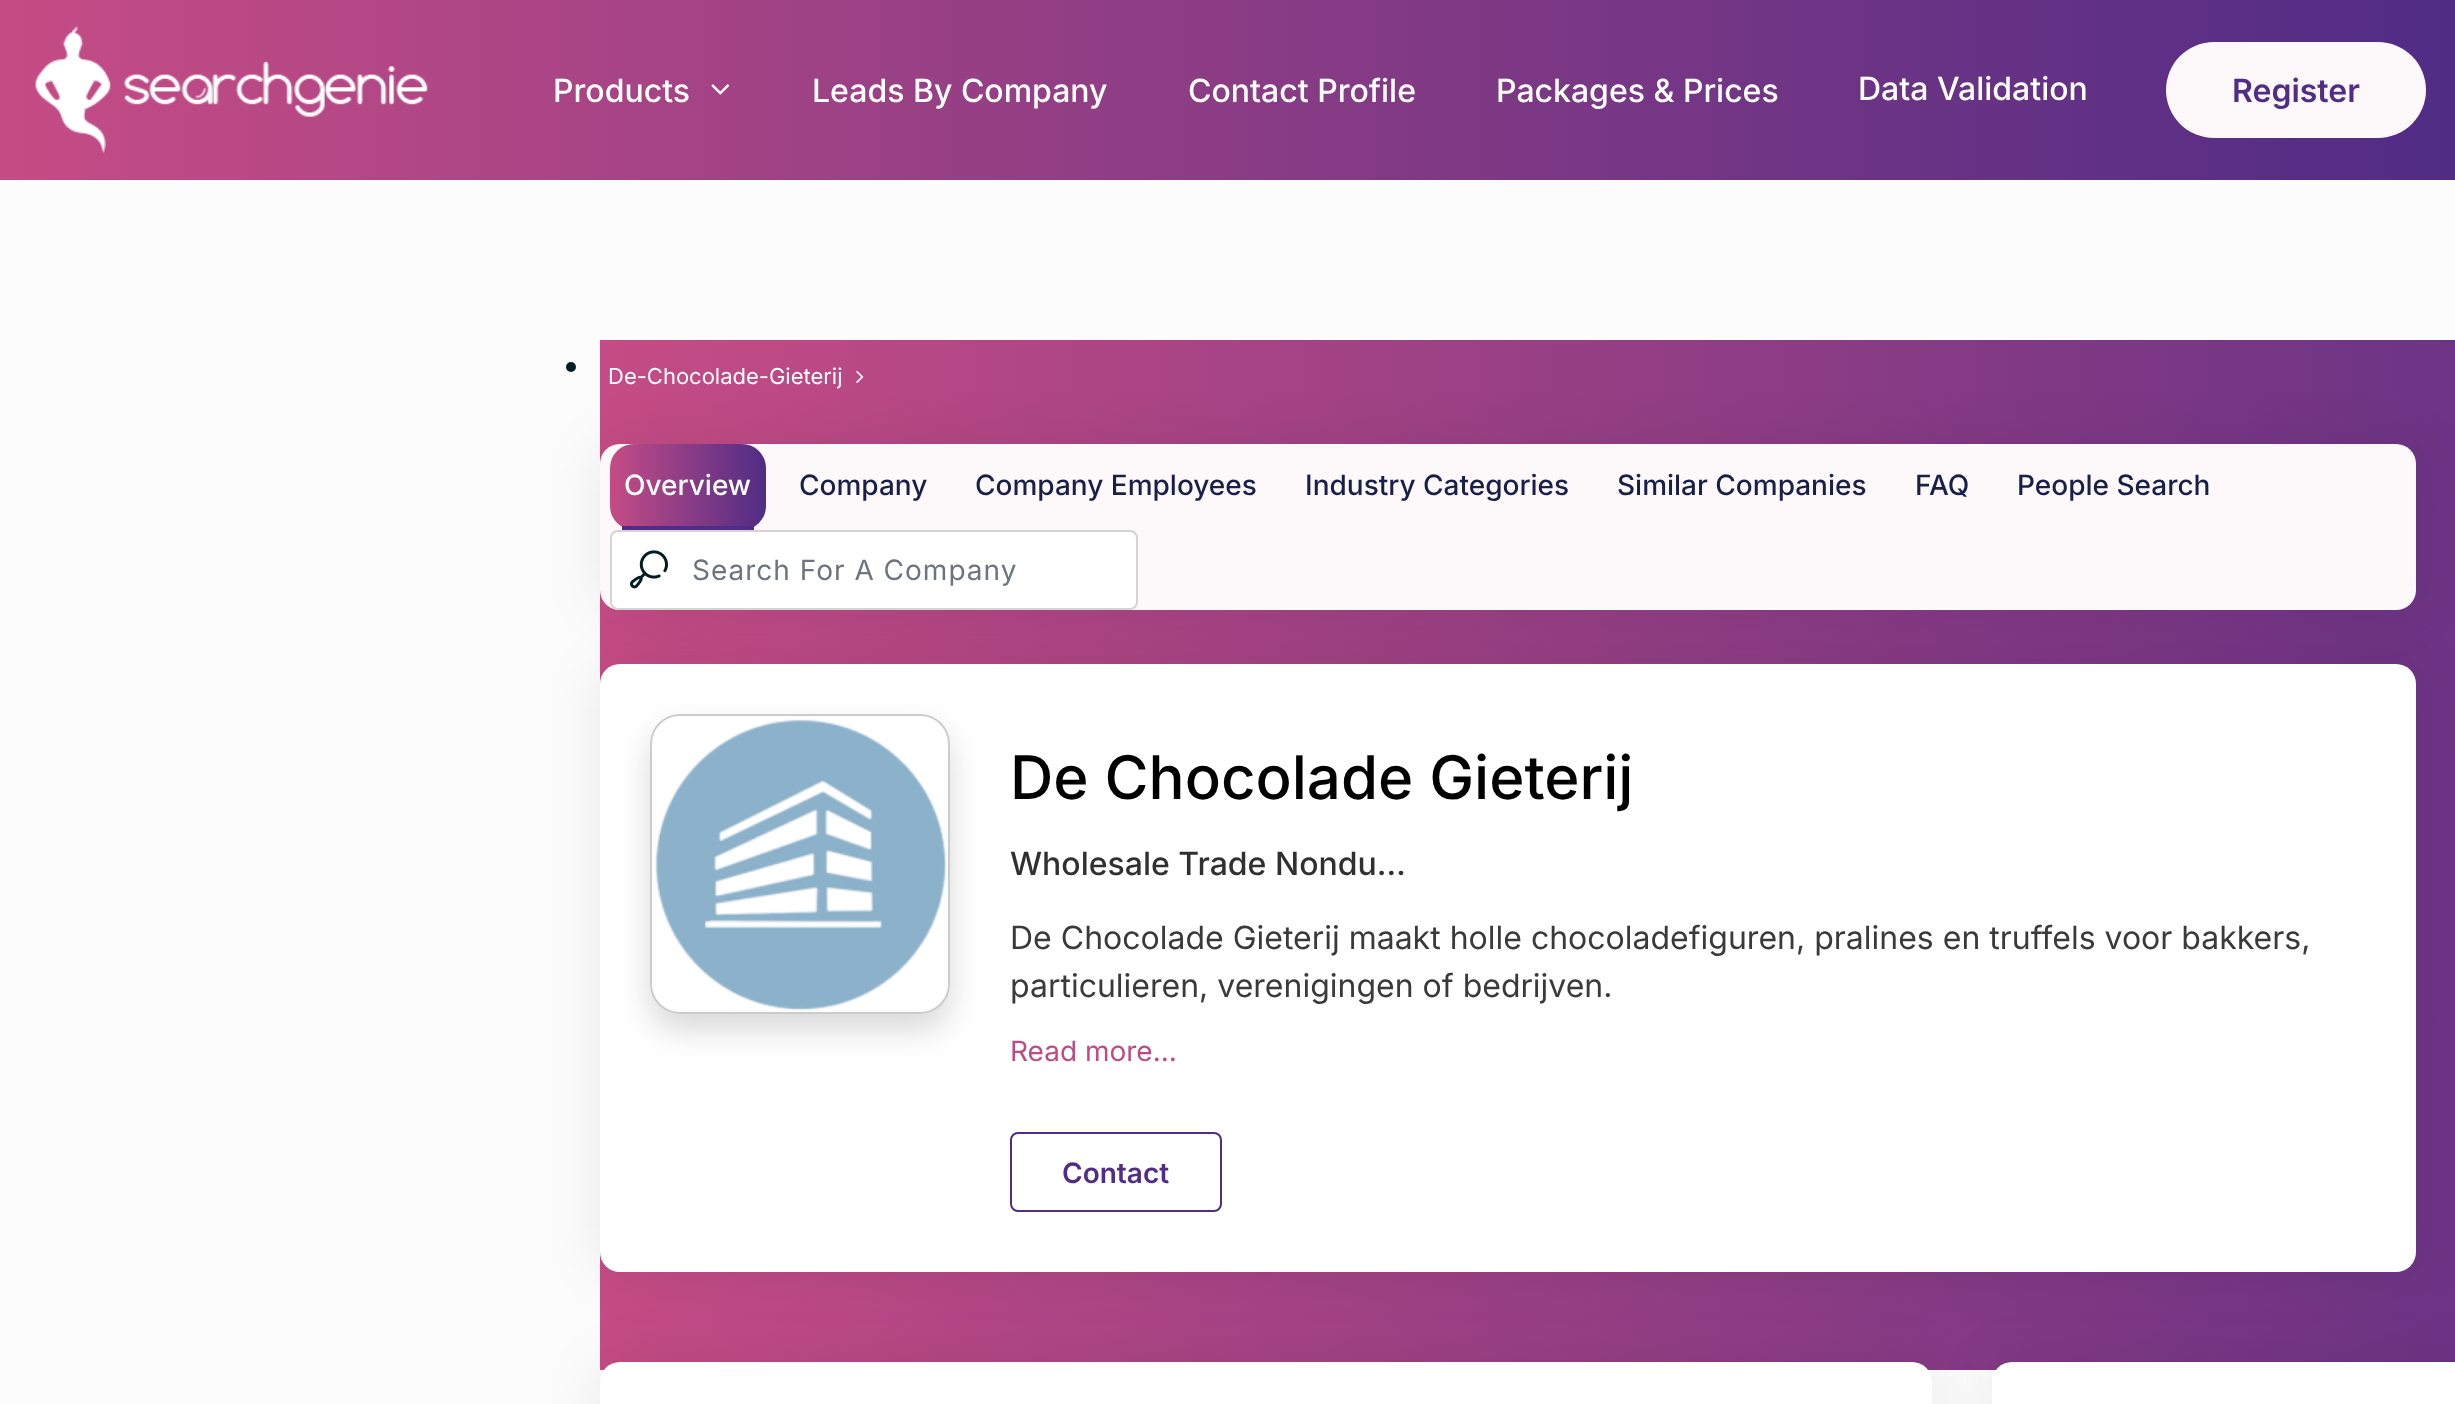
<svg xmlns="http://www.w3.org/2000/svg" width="2455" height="1404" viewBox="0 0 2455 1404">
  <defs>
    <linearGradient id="g1" gradientUnits="userSpaceOnUse" x1="0" y1="90" x2="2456" y2="90"><stop offset="0" stop-color="#c54c85"/><stop offset="1" stop-color="#502c85"/></linearGradient>
    <linearGradient id="g2" gradientUnits="userSpaceOnUse" x1="600" y1="855" x2="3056" y2="855"><stop offset="0" stop-color="#c54c85"/><stop offset="1" stop-color="#502c85"/></linearGradient>
    <linearGradient id="g3" gradientUnits="userSpaceOnUse" x1="610" y1="485" x2="766" y2="485"><stop offset="0" stop-color="#c54c85"/><stop offset="1" stop-color="#502c85"/></linearGradient>
    <clipPath id="clip1"><path d="M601 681H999V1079H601ZM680 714H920C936.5 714 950 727.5 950 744V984C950 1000.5 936.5 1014 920 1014H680C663.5 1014 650 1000.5 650 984V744C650 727.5 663.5 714 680 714Z" clip-rule="evenodd"/></clipPath>
  </defs>
  <rect width="100%" height="100%" fill="#fcfcfc"/>
  <path d="M0 0h2455v180H0z" fill="url(#g1)"/>
  <image x="35" y="25" width="393" height="129" href="img/1.png"/>
  <image x="711" y="84" width="19" height="11" href="img/2.png"/>
  <rect x="2166" y="42" width="260" height="96" rx="48" fill="#fdf9fb"/>
  <path d="M600 340h1855v1030H600z" fill="url(#g2)"/>
  <circle cx="571" cy="367" r="5" fill="#031e23"/>
  <image x="856" y="370" width="8" height="13" href="img/3.png"/>
  <rect x="600" y="664" width="1816" height="608" rx="20" fill="#00000014" filter="blur(28px)"/>
  <rect x="600" y="664" width="1816" height="608" rx="20" fill="#fff"/>
  <rect x="600" y="444" width="1816" height="166" rx="20" fill="#00000014" filter="blur(28px)"/>
  <rect x="600" y="444" width="1816" height="166" rx="20" fill="#fdf9fb"/>
  <rect x="610" y="444" width="156" height="86" rx="24" fill="url(#g3)"/>
  <path d="M622 526h132v4H622z" fill="#502c85"/>
  <rect x="611" y="531" width="526" height="78" rx="7" fill="#fff" stroke="#d4d4d4" stroke-width="2"/>
  <image x="630" y="550" width="38" height="39" href="img/4.png"/>
  <g clip-path="url(#clip1)">
    <rect x="650" y="730" width="300" height="300" rx="30" fill="#00000026" filter="blur(16px)"/>
  </g>
  <rect x="651" y="715" width="298" height="298" rx="29" fill="none" stroke="#ccc" stroke-width="2"/>
  <image x="655" y="719" width="291" height="291" href="img/5.png"/>
  <rect x="1011" y="1133" width="210" height="78" rx="7" fill="none" stroke="#522d85" stroke-width="2"/>
  <rect x="600" y="1362" width="1332" height="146" rx="20" fill="#00000014" filter="blur(28px)"/>
  <rect x="600" y="1362" width="1332" height="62" rx="20" fill="#fff"/>
  <rect x="1992" y="1362" width="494" height="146" rx="20" fill="#00000014" filter="blur(28px)"/>
  <rect x="1992" y="1362" width="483" height="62" rx="20" fill="#fff"/>
  <g font-family="Inter" font-size="32" font-weight="500" fill="#fff">
    <text x="553" y="102">Products</text>
    <text x="812" y="102">Leads By Company</text>
    <text x="1188" y="102">Contact Profile</text>
    <text x="1496" y="102">Packages &amp; Prices</text>
    <text x="1858" y="100">Data Validation</text>
  </g>
  <text x="2232" y="102" font-family="Inter" font-size="32" font-weight="600" fill="#522d85">Register</text>
  <text x="608" y="384" font-family="Inter" font-size="22" fill="#fff">De-Chocolade-Gieterij</text>
  <text x="624" y="495" font-family="Inter" font-size="28" font-weight="500" fill="#fff">Overview</text>
  <g font-family="Inter" font-size="28" font-weight="500" fill="#181f48">
    <text x="799" y="495">Company</text>
    <text x="975" y="495">Company Employees</text>
    <text x="1305" y="495">Industry Categories</text>
    <text x="1617" y="495">Similar Companies</text>
    <text x="1915" y="495">FAQ</text>
    <text x="2017" y="495">People Search</text>
  </g>
  <text x="692" y="580" font-family="Inter" font-size="28" letter-spacing="1" fill="#6c757d">Search For A Company</text>
  <text x="1010" y="799" font-family="Inter" font-size="60" font-weight="500" fill="#000">De Chocolade Gieterij</text>
  <text x="1010" y="875" font-family="Inter" font-size="32" font-weight="500" fill="#303030">Wholesale Trade Nondu…</text>
  <g font-family="Inter" font-size="32" fill="#3a3a3a">
    <text x="1010" y="949">De Chocolade Gieterij maakt holle chocoladefiguren, pralines en truffels voor bakkers,</text>
    <text x="1010" y="997">particulieren, verenigingen of bedrijven.</text>
  </g>
  <text x="1010" y="1061" font-family="Inter" font-size="28" fill="#bf4b85">Read more...</text>
  <text x="1062" y="1183" font-family="Inter" font-size="28" font-weight="600" fill="#522d85">Contact</text>
</svg>
